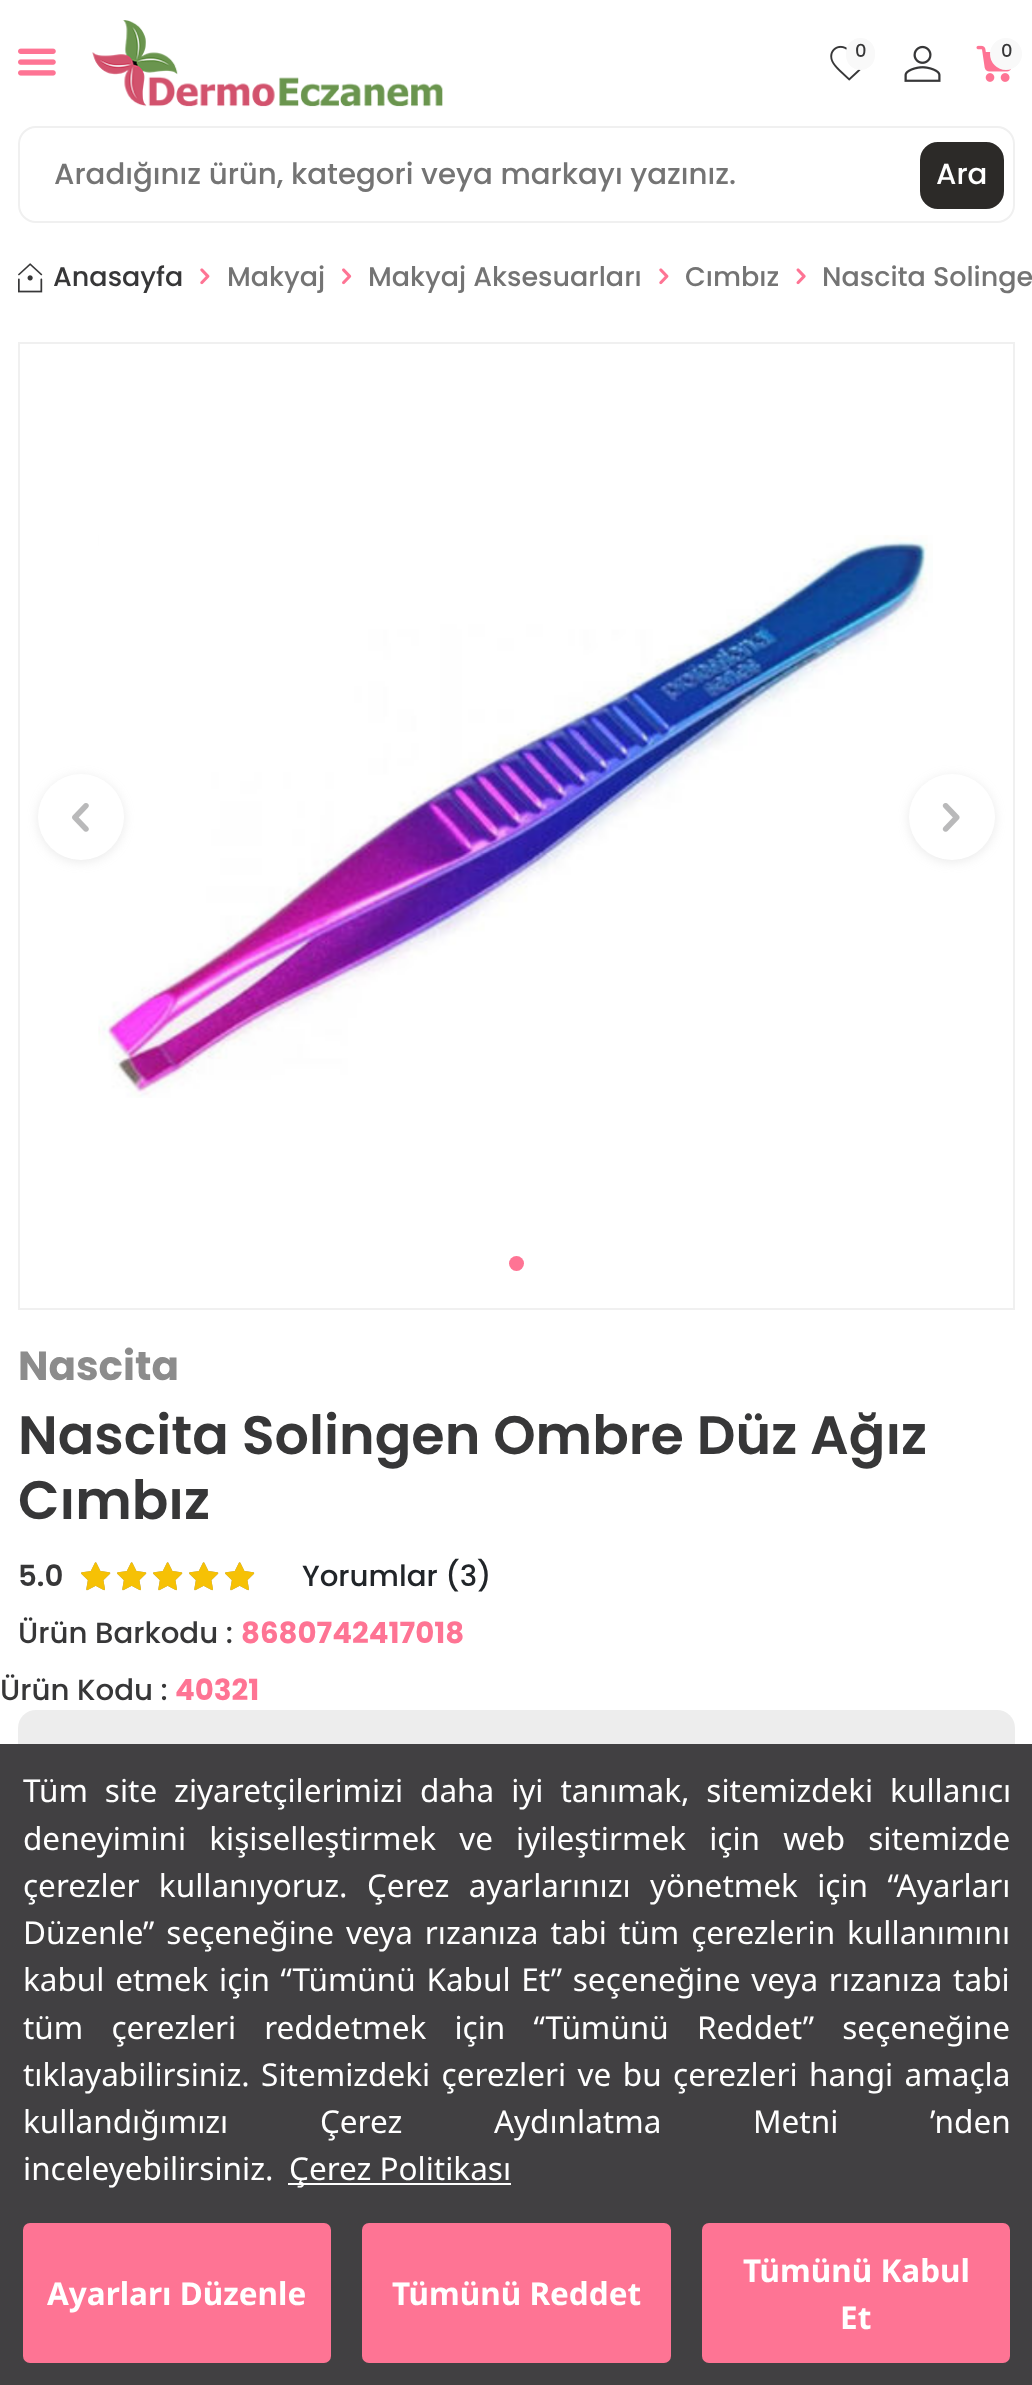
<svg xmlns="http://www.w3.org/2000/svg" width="1032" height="2385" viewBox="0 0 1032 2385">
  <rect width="100%" height="100%" fill="#fff"/>
  <image x="18" y="48" width="38" height="28" href="img/1.png"/>
  <image x="92" y="20" width="351" height="87" href="img/2.png"/>
  <image x="830" y="45" width="32" height="36" href="img/3.png"/>
  <rect x="847" y="39" width="27" height="30" rx="13.5" fill="#f9f9f9" stroke="#f9f9f9" stroke-width="2"/>
  <image x="904" y="45" width="37" height="37" href="img/4.png"/>
  <image x="976" y="45" width="36" height="37" href="img/5.png"/>
  <circle cx="1006" cy="54" r="15" fill="#f9f9f9" stroke="#f9f9f9" stroke-width="2"/>
  <rect x="19" y="127" width="995" height="95" rx="17" fill="none" stroke="#f0f0f0" stroke-width="2"/>
  <rect x="921" y="143" width="82" height="65" rx="17" fill="#2c2a28" stroke="#2c2a28" stroke-width="2"/>
  <image x="18" y="263" width="25" height="30" href="img/6.png"/>
  <image x="200" y="268" width="10" height="17" href="img/7.png"/>
  <image x="342" y="268" width="10" height="17" href="img/8.png"/>
  <image x="659" y="268" width="10" height="17" href="img/7.png"/>
  <image x="796" y="268" width="10" height="17" href="img/9.png"/>
  <path d="M19 343h995v966H19z" fill="none" stroke="#f0f0f0" stroke-width="2"/>
  <image x="98" y="535" width="835" height="563" href="img/11.png"/>
  <rect x="38" y="776" width="86" height="86" rx="43" fill="#a6a6a63d" filter="blur(5.5px)"/>
  <circle cx="81" cy="817" r="43" fill="#fff"/>
  <image x="72" y="803" width="17" height="29" href="img/10.png"/>
  <rect x="909" y="776" width="86" height="86" rx="43" fill="#a6a6a63d" filter="blur(5.5px)"/>
  <circle cx="952" cy="817" r="43" fill="#fff"/>
  <image x="942" y="803" width="18" height="29" href="img/12.png"/>
  <circle cx="516.5" cy="1263.5" r="7.5" fill="#fe7494"/>
  <image x="81" y="1562" width="30" height="29" href="img/13.png"/>
  <image x="81" y="1562" width="30" height="29" href="img/14.png"/>
  <image x="117" y="1562" width="30" height="29" href="img/13.png"/>
  <image x="117" y="1562" width="30" height="29" href="img/14.png"/>
  <image x="153" y="1562" width="30" height="29" href="img/13.png"/>
  <image x="153" y="1562" width="30" height="29" href="img/14.png"/>
  <image x="189" y="1562" width="30" height="29" href="img/13.png"/>
  <image x="189" y="1562" width="30" height="29" href="img/14.png"/>
  <image x="225" y="1562" width="30" height="29" href="img/13.png"/>
  <image x="225" y="1562" width="29" height="29" href="img/15.png"/>
  <rect x="18" y="1710" width="997" height="144" rx="18" fill="#ededed"/>
  <path d="M0 1744h1032v641H0z" fill="#414042"/>
  <path d="M288 2183h223v2H288z" fill="#fff"/>
  <rect x="23" y="2223" width="308" height="140" rx="7" fill="#fe7494"/>
  <rect x="362" y="2223" width="309" height="140" rx="7" fill="#fe7494"/>
  <rect x="702" y="2223" width="308" height="140" rx="7" fill="#fe7494"/>
  <g font-family="Poppins" font-size="18" font-weight="500" fill="#373738">
    <text x="855" y="57">0</text>
    <text x="1001" y="57">0</text>
  </g>
  <text x="54" y="184" font-family="Poppins" font-size="29.25" font-weight="500" fill="#747474">Aradığınız ürün, kategori veya markayı yazınız.</text>
  <text x="936" y="184" font-family="Poppins" font-size="29.25" font-weight="500" fill="#fff">Ara</text>
  <text x="53" y="286" font-family="Poppins" font-size="27" font-weight="500" fill="#373738">Anasayfa</text>
  <g font-family="Poppins" font-size="27" font-weight="500" fill="#747474">
    <text x="227" y="286">Makyaj</text>
    <text x="368" y="286">Makyaj Aksesuarları</text>
    <text x="685" y="286">Cımbız</text>
    <text x="822" y="286">Nascita Solinge</text>
  </g>
  <text x="18" y="1380" font-family="Poppins" font-size="40.5" font-weight="bold" fill="#8c8c8c">Nascita</text>
  <g font-family="Poppins" font-size="54" font-weight="600" fill="#373738">
    <text x="18" y="1454">Nascita Solingen Ombre Düz Ağız</text>
    <text x="18" y="1519">Cımbız</text>
  </g>
  <text x="18" y="1586" font-family="Poppins" font-size="29.25" font-weight="600" fill="#373738">5.0</text>
  <text x="302" y="1586" font-family="Poppins" font-size="29.25" font-weight="500" fill="#212529">Yorumlar (3)</text>
  <text x="18" y="1643" font-family="Poppins" font-size="29.25" font-weight="500" fill="#373738">Ürün Barkodu :</text>
  <text x="241" y="1643" font-family="Poppins" font-size="29.25" font-weight="bold" fill="#fe7494">8680742417018</text>
  <text x="0" y="1700" font-family="Poppins" font-size="29.25" font-weight="500" fill="#373738">Ürün Kodu :</text>
  <text x="175" y="1700" font-family="Poppins" font-size="29.25" font-weight="bold" fill="#fe7494">40321</text>
  <g font-family="Noto Sans" font-size="31.5" fill="#fff">
    <text x="23" y="1802" word-spacing="8.75">Tüm site ziyaretçilerimizi daha iyi tanımak, sitemizdeki kullanıcı</text>
    <text x="23" y="1850" word-spacing="15">deneyimini kişiselleştirmek ve iyileştirmek için web sitemizde</text>
    <text x="23" y="1897" word-spacing="11.25">çerezler kullanıyoruz. Çerez ayarlarınızı yönetmek için “Ayarları</text>
    <text x="23" y="1944" word-spacing="3.75">Düzenle” seçeneğine veya rızanıza tabi tüm çerezlerin kullanımını</text>
    <text x="23" y="1991" word-spacing="2.5">kabul etmek için “Tümünü Kabul Et” seçeneğine veya rızanıza tabi</text>
    <text x="23" y="2039" word-spacing="20">tüm çerezleri reddetmek için “Tümünü Reddet” seçeneğine</text>
    <text x="23" y="2086" word-spacing="3.25">tıklayabilirsiniz. Sitemizdeki çerezleri ve bu çerezleri hangi amaçla</text>
    <text x="23" y="2133" word-spacing="83.5">kullandığımızı Çerez Aydınlatma Metni ’nden</text>
    <text x="23" y="2180">inceleyebilirsiniz.</text>
    <text x="289" y="2180">Çerez Politikası</text>
  </g>
  <g font-family="Noto Sans" font-size="31.5" font-weight="bold" fill="#fff">
    <text x="47" y="2305">Ayarları Düzenle</text>
    <text x="392" y="2305">Tümünü Reddet</text>
    <text x="743" y="2282">Tümünü Kabul</text>
    <text x="840" y="2329">Et</text>
  </g>
</svg>
